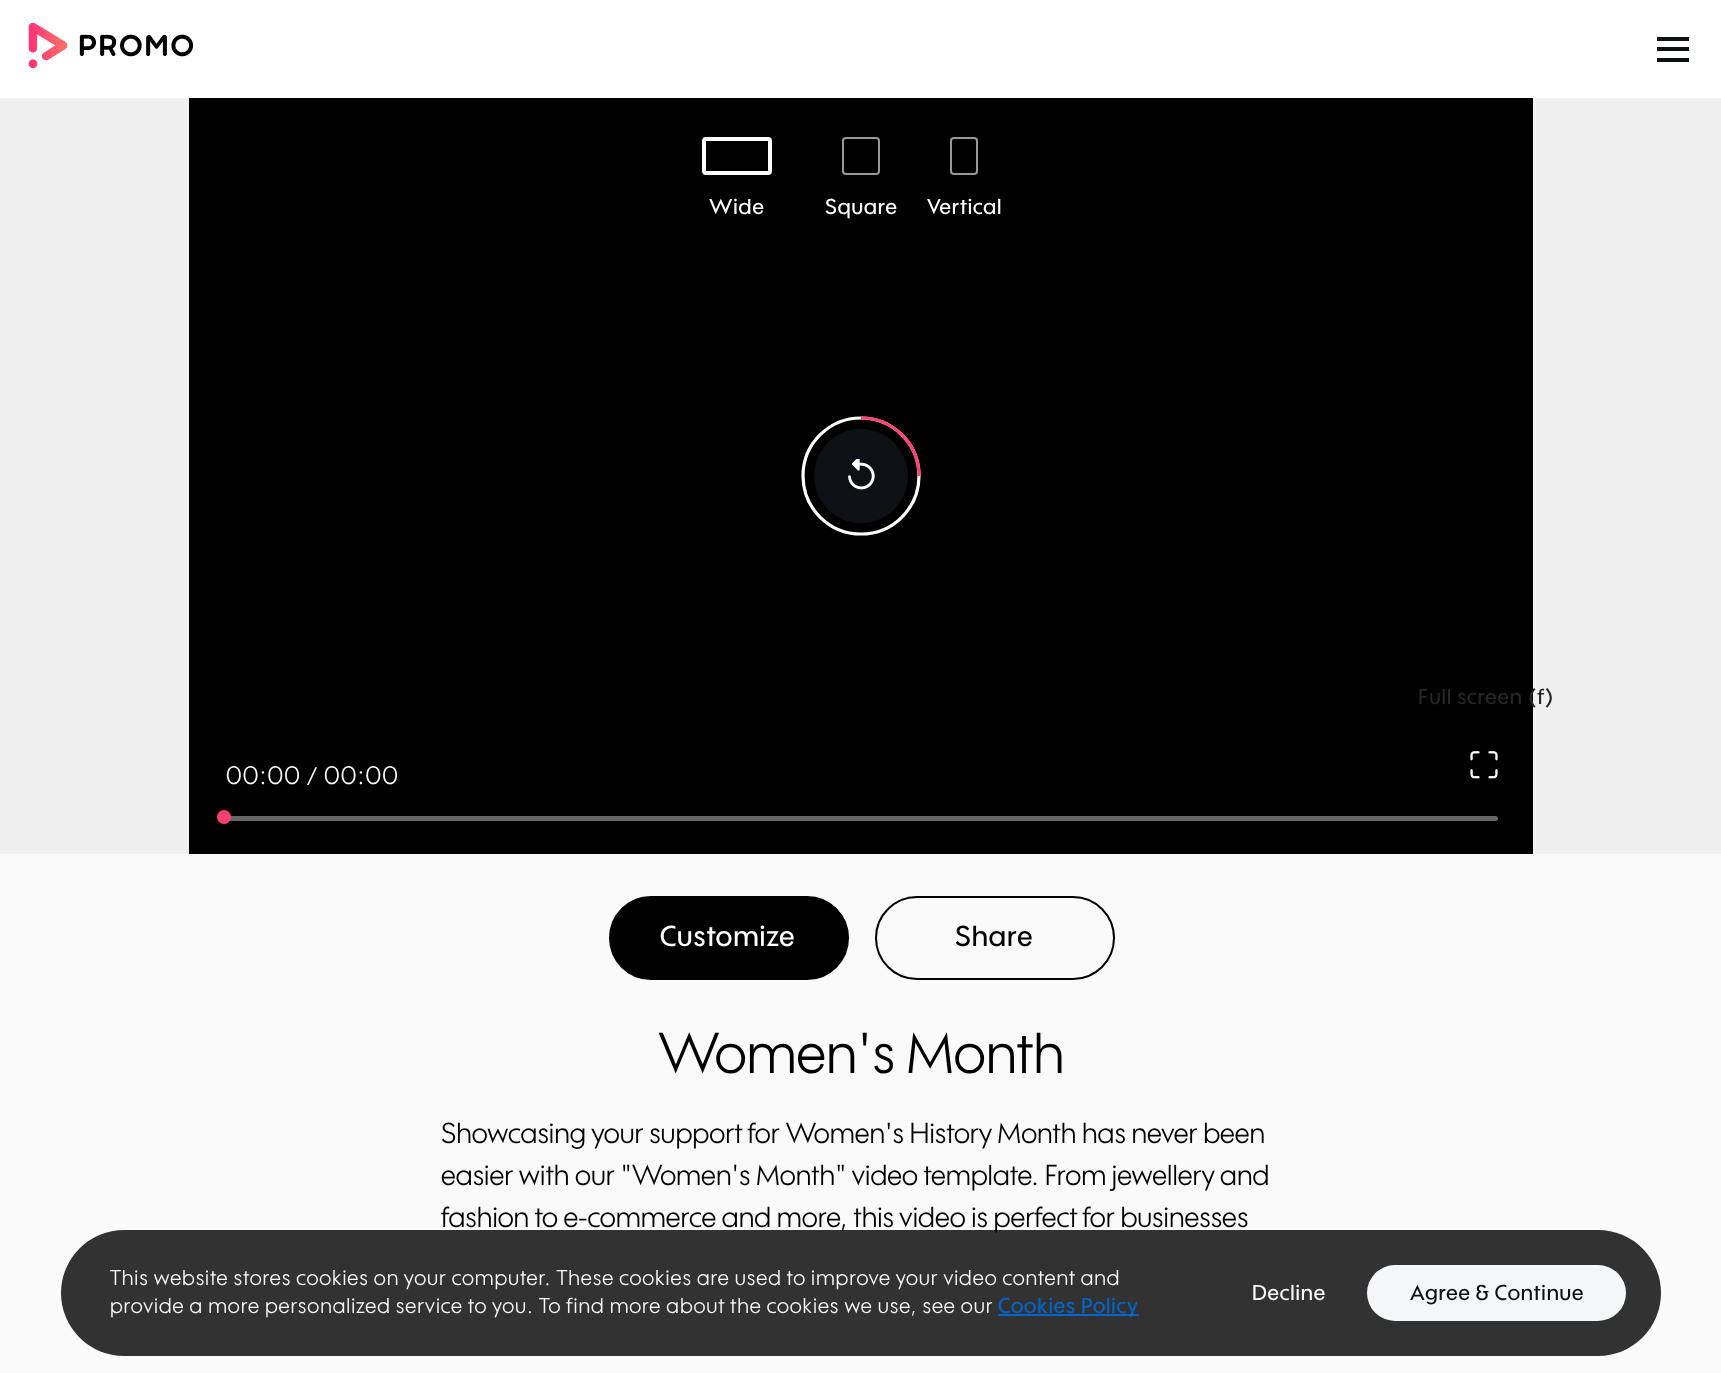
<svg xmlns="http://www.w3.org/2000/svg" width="1721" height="1373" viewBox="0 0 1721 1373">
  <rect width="100%" height="100%" fill="#fafafa"/>
  <path d="M0 0h1721v98H0z" fill="#fff"/>
  <image x="28" y="23" width="166" height="45" href="img/1.png"/>
  <path d="M1657 37h32v4H1657z" fill="#0e1114"/>
  <path d="M1657 47h32v4H1657z" fill="#0e1114"/>
  <path d="M1657 58h32v4H1657z" fill="#0e1114"/>
  <path d="M0 98h1721v756H0z" fill="#f0f0f0"/>
  <path d="M189 98h1344v756H189z" fill="#000"/>
  <rect x="704" y="139" width="66" height="34" rx="2" fill="none" stroke="#fff" stroke-width="4"/>
  <rect x="843" y="138" width="36" height="36" rx="3" fill="none" stroke="#999" stroke-width="2"/>
  <rect x="951" y="138" width="26" height="36" rx="3" fill="none" stroke="#999" stroke-width="2"/>
  <circle cx="861" cy="476" r="47" fill="#0d1015"/>
  <image x="848" y="459" width="27" height="31" href="img/2.png"/>
  <circle cx="861" cy="476" r="58" fill="none" stroke="#fff" stroke-width="3.2"/>
  <path d="M919 476C919 444 893 418 861 418" fill="none" stroke="#ff4070" stroke-width="3.2"/>
  <image x="1470" y="751" width="28" height="28" href="img/3.png"/>
  <rect x="224" y="816" width="1274" height="5" rx="2.5" fill="#666"/>
  <circle cx="224" cy="817" r="7" fill="#ff4070"/>
  <rect x="610" y="897" width="238" height="82" rx="41" fill="#000" stroke="#000" stroke-width="2"/>
  <rect x="876" y="897" width="238" height="82" rx="41" fill="none" stroke="#000" stroke-width="2"/>
  <g font-family="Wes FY" font-size="21" font-weight="500" letter-spacing="0.88" fill="#fff">
    <text x="709" y="214">Wide</text>
    <text x="825" y="214">Square</text>
    <text x="927" y="214">Vertical</text>
  </g>
  <text x="1418" y="704" font-family="Wes FY" font-size="21" font-weight="500" letter-spacing="0.88" fill="#262626">Full screen (f)</text>
  <text x="226" y="784" font-family="Wes FY" font-size="24.5" letter-spacing="1" fill="#fff">00:00</text>
  <text x="307" y="785" font-family="Wes FY" font-size="24.5" fill="#fff">/</text>
  <text x="324" y="784" font-family="Wes FY" font-size="24.5" letter-spacing="1" fill="#fff">00:00</text>
  <text x="660" y="946" font-family="Wes FY" font-size="28" font-weight="500" letter-spacing="1" fill="#fff">Customize</text>
  <text x="955" y="946" font-family="Wes FY" font-size="28" font-weight="500" letter-spacing="1" fill="#000">Share</text>
  <text x="658" y="1073" font-family="Wes FY" font-size="56" fill="#000">Women's Month</text>
  <g font-family="Wes FY" font-size="28" fill="#000">
    <text x="441" y="1143">Showcasing your support for Women's History Month has never been</text>
    <text x="441" y="1185">easier with our "Women's Month" video template. From jewellery and</text>
    <text x="441" y="1227">fashion to e-commerce and more, this video is perfect for businesses</text>
  </g>
  <rect x="61" y="1230" width="1600" height="126" rx="63" fill="#000000cc"/>
  <g font-family="Wes FY" font-size="21" letter-spacing="0.88" fill="#f9f9f9">
    <text x="110" y="1285">This website stores cookies on your computer. These cookies are used to improve your video content and</text>
    <text x="110" y="1313">provide a more personalized service to you. To find more about the cookies we use, see our</text>
  </g>
  <path d="M998 1314h141v2H998z" fill="#06c"/>
  <text x="998" y="1313" font-family="Wes FY" font-size="21" font-weight="500" letter-spacing="0.88" fill="#06c">Cookies Policy</text>
  <text x="1252" y="1300" font-family="Wes FY" font-size="21" font-weight="500" letter-spacing="0.88" fill="#f9f9f9">Decline</text>
  <rect x="1367" y="1265" width="259" height="56" rx="28" fill="#f5f6f8"/>
  <text x="1410" y="1300" font-family="Wes FY" font-size="21" font-weight="500" letter-spacing="0.88" fill="#0e1114">Agree &amp; Continue</text>
</svg>
